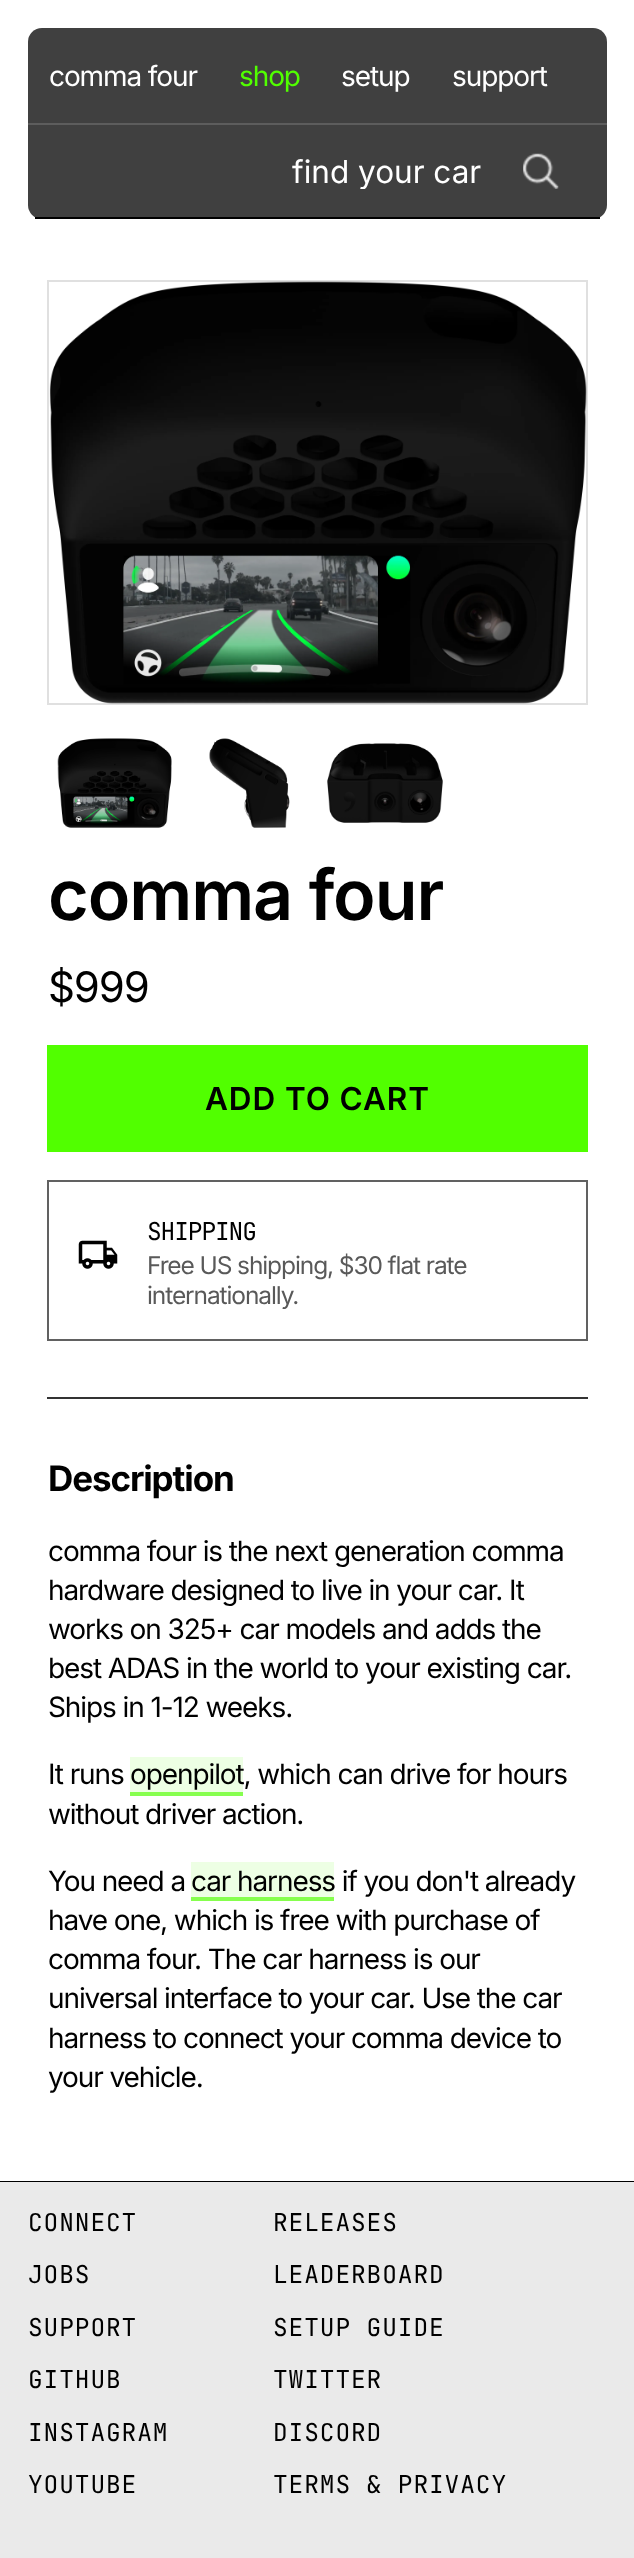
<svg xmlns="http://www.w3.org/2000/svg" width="634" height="2558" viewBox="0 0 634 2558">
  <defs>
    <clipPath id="clip1"><path d="M77 152h404v37H77z"/></clipPath>
  </defs>
  <rect width="100%" height="100%" fill="#fff"/>
  <rect x="28" y="28" width="579" height="191" rx="14" fill="#404040"/>
  <path d="M35 217h565v2H35z" fill="#000"/>
  <path d="M28 123h579v2H28z" fill="#5d5d5d"/>
  <image x="523" y="153" width="36" height="36" href="img/1.png"/>
  <path d="M48 281h539v423H48z" fill="none" stroke="#e0e0e0" stroke-width="2"/>
  <image x="49" y="281" width="538" height="423" href="img/2.png"/>
  <image x="57" y="738" width="115" height="90" href="img/3.png"/>
  <image x="209" y="738" width="81" height="90" href="img/4.png"/>
  <image x="327" y="743" width="116" height="80" href="img/5.png"/>
  <path d="M47 1045h541v107H47z" fill="#51ff00"/>
  <path d="M48 1181h539v159H48z" fill="none" stroke="#616161" stroke-width="2"/>
  <image x="78" y="1240" width="40" height="29" href="img/6.png"/>
  <path d="M47 1397h541v2H47z" fill="#333"/>
  <path d="M130 1757h113v35H130z" fill="#edffe4"/>
  <path d="M130 1792h113v4H130z" fill="#86ff4e"/>
  <path d="M191 1862h143v35H191z" fill="#edffe4"/>
  <path d="M191 1897h143v4H191z" fill="#86ff4e"/>
  <path d="M0 2181h634v1H0z" fill="#000"/>
  <path d="M0 2182h634v376H0z" fill="#eaeaea"/>
  <text x="49" y="86" font-family="Inter" font-size="28" letter-spacing="-1.1" fill="#fff">comma four</text>
  <text x="239" y="86" font-family="Inter" font-size="28" letter-spacing="-1.1" fill="#51ff00">shop</text>
  <g font-family="Inter" font-size="28" letter-spacing="-1.1" fill="#fff">
    <text x="341" y="86">setup</text>
    <text x="452" y="86">support</text>
  </g>
  <g clip-path="url(#clip1)">
    <text x="292" y="183" font-family="Inter" font-size="31.5" fill="#fff">find your car</text>
  </g>
  <text x="48" y="920" font-family="Inter" font-size="70" font-weight="600" letter-spacing="-1.1" fill="#000">comma four</text>
  <text x="48" y="1002" font-family="Inter" font-size="42" letter-spacing="-1.1" fill="#000">$999</text>
  <text x="205" y="1110" font-family="Inter" font-size="31.5" font-weight="600" letter-spacing="0.9" fill="#000">ADD TO CART</text>
  <text x="147" y="1240" font-family="JetBrains Mono" font-size="24.5" letter-spacing="-1.1" fill="#000">SHIPPING</text>
  <g font-family="Inter" font-size="24.5" letter-spacing="-1.1" fill="#595959">
    <text x="147" y="1274">Free US shipping, $30 flat rate</text>
    <text x="147" y="1304">internationally.</text>
  </g>
  <text x="48" y="1491" font-family="Inter" font-size="35" font-weight="bold" letter-spacing="-1.1" fill="#000">Description</text>
  <g font-family="Inter" font-size="28" letter-spacing="-1.1" fill="#000">
    <text x="48" y="1561">comma four is the next generation comma</text>
    <text x="48" y="1600">hardware designed to live in your car. It</text>
    <text x="48" y="1639">works on 325+ car models and adds the</text>
    <text x="48" y="1678">best ADAS in the world to your existing car.</text>
    <text x="48" y="1717">Ships in 1-12 weeks.</text>
    <text x="48" y="1784">It runs</text>
    <text x="130" y="1784">openpilot, which can drive for hours</text>
    <text x="48" y="1824">without driver action.</text>
    <text x="48" y="1891">You need a</text>
    <text x="191" y="1891">car harness if you don't already</text>
    <text x="48" y="1930">have one, which is free with purchase of</text>
    <text x="48" y="1969">comma four. The car harness is our</text>
    <text x="48" y="2008">universal interface to your car. Use the car</text>
    <text x="48" y="2048">harness to connect your comma device to</text>
    <text x="48" y="2087">your vehicle.</text>
  </g>
  <g font-family="JetBrains Mono" font-size="24.5" letter-spacing="0.9" fill="#000">
    <text x="28" y="2231">CONNECT</text>
    <text x="273" y="2231">RELEASES</text>
    <text x="28" y="2283">JOBS</text>
    <text x="273" y="2283">LEADERBOARD</text>
    <text x="28" y="2336">SUPPORT</text>
    <text x="273" y="2336">SETUP GUIDE</text>
    <text x="28" y="2388">GITHUB</text>
    <text x="273" y="2388">TWITTER</text>
    <text x="28" y="2441">INSTAGRAM</text>
    <text x="273" y="2441">DISCORD</text>
    <text x="28" y="2493">YOUTUBE</text>
    <text x="273" y="2493">TERMS &amp; PRIVACY</text>
  </g>
</svg>
